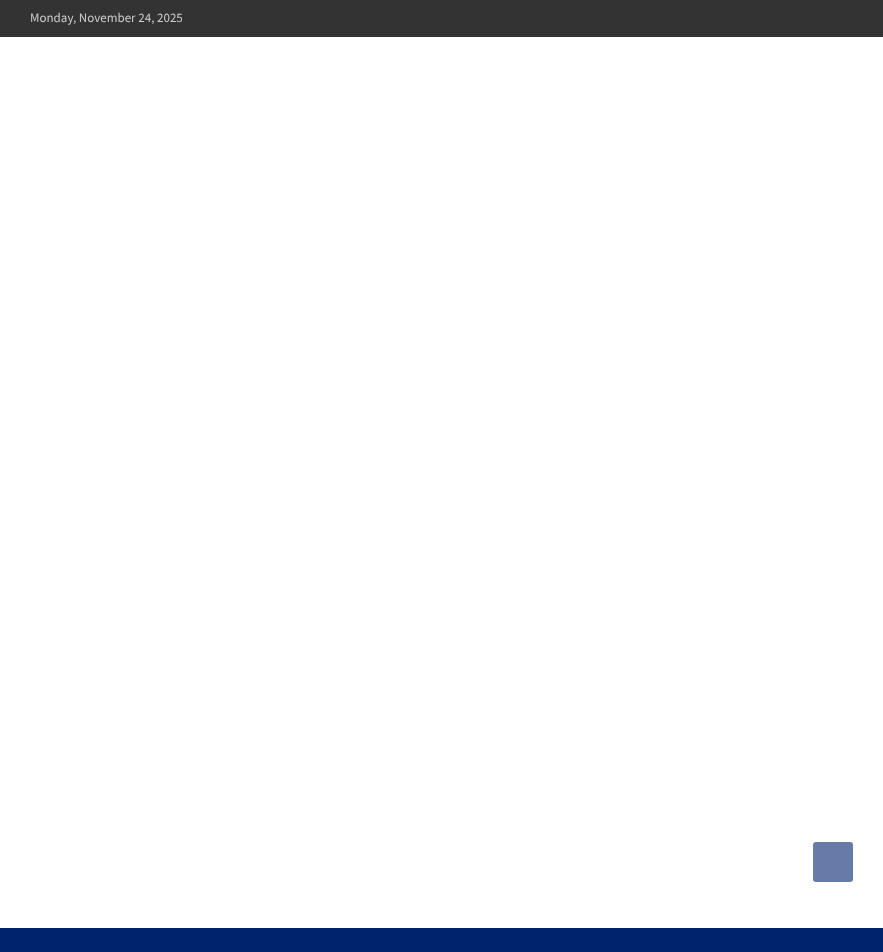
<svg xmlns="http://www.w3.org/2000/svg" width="883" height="952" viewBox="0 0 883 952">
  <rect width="100%" height="100%" fill="#333"/>
  <path d="M0 37h883v891H0z" fill="#fff"/>
  <path d="M0 928h883v24H0z" fill="#00236e"/>
  <rect x="813" y="842" width="40" height="40" rx="3" fill="#667ba8"/>
  <text x="30" y="22" font-family="Source Sans Pro" font-size="13" fill="#ccc">Monday, November 24, 2025</text>
</svg>
